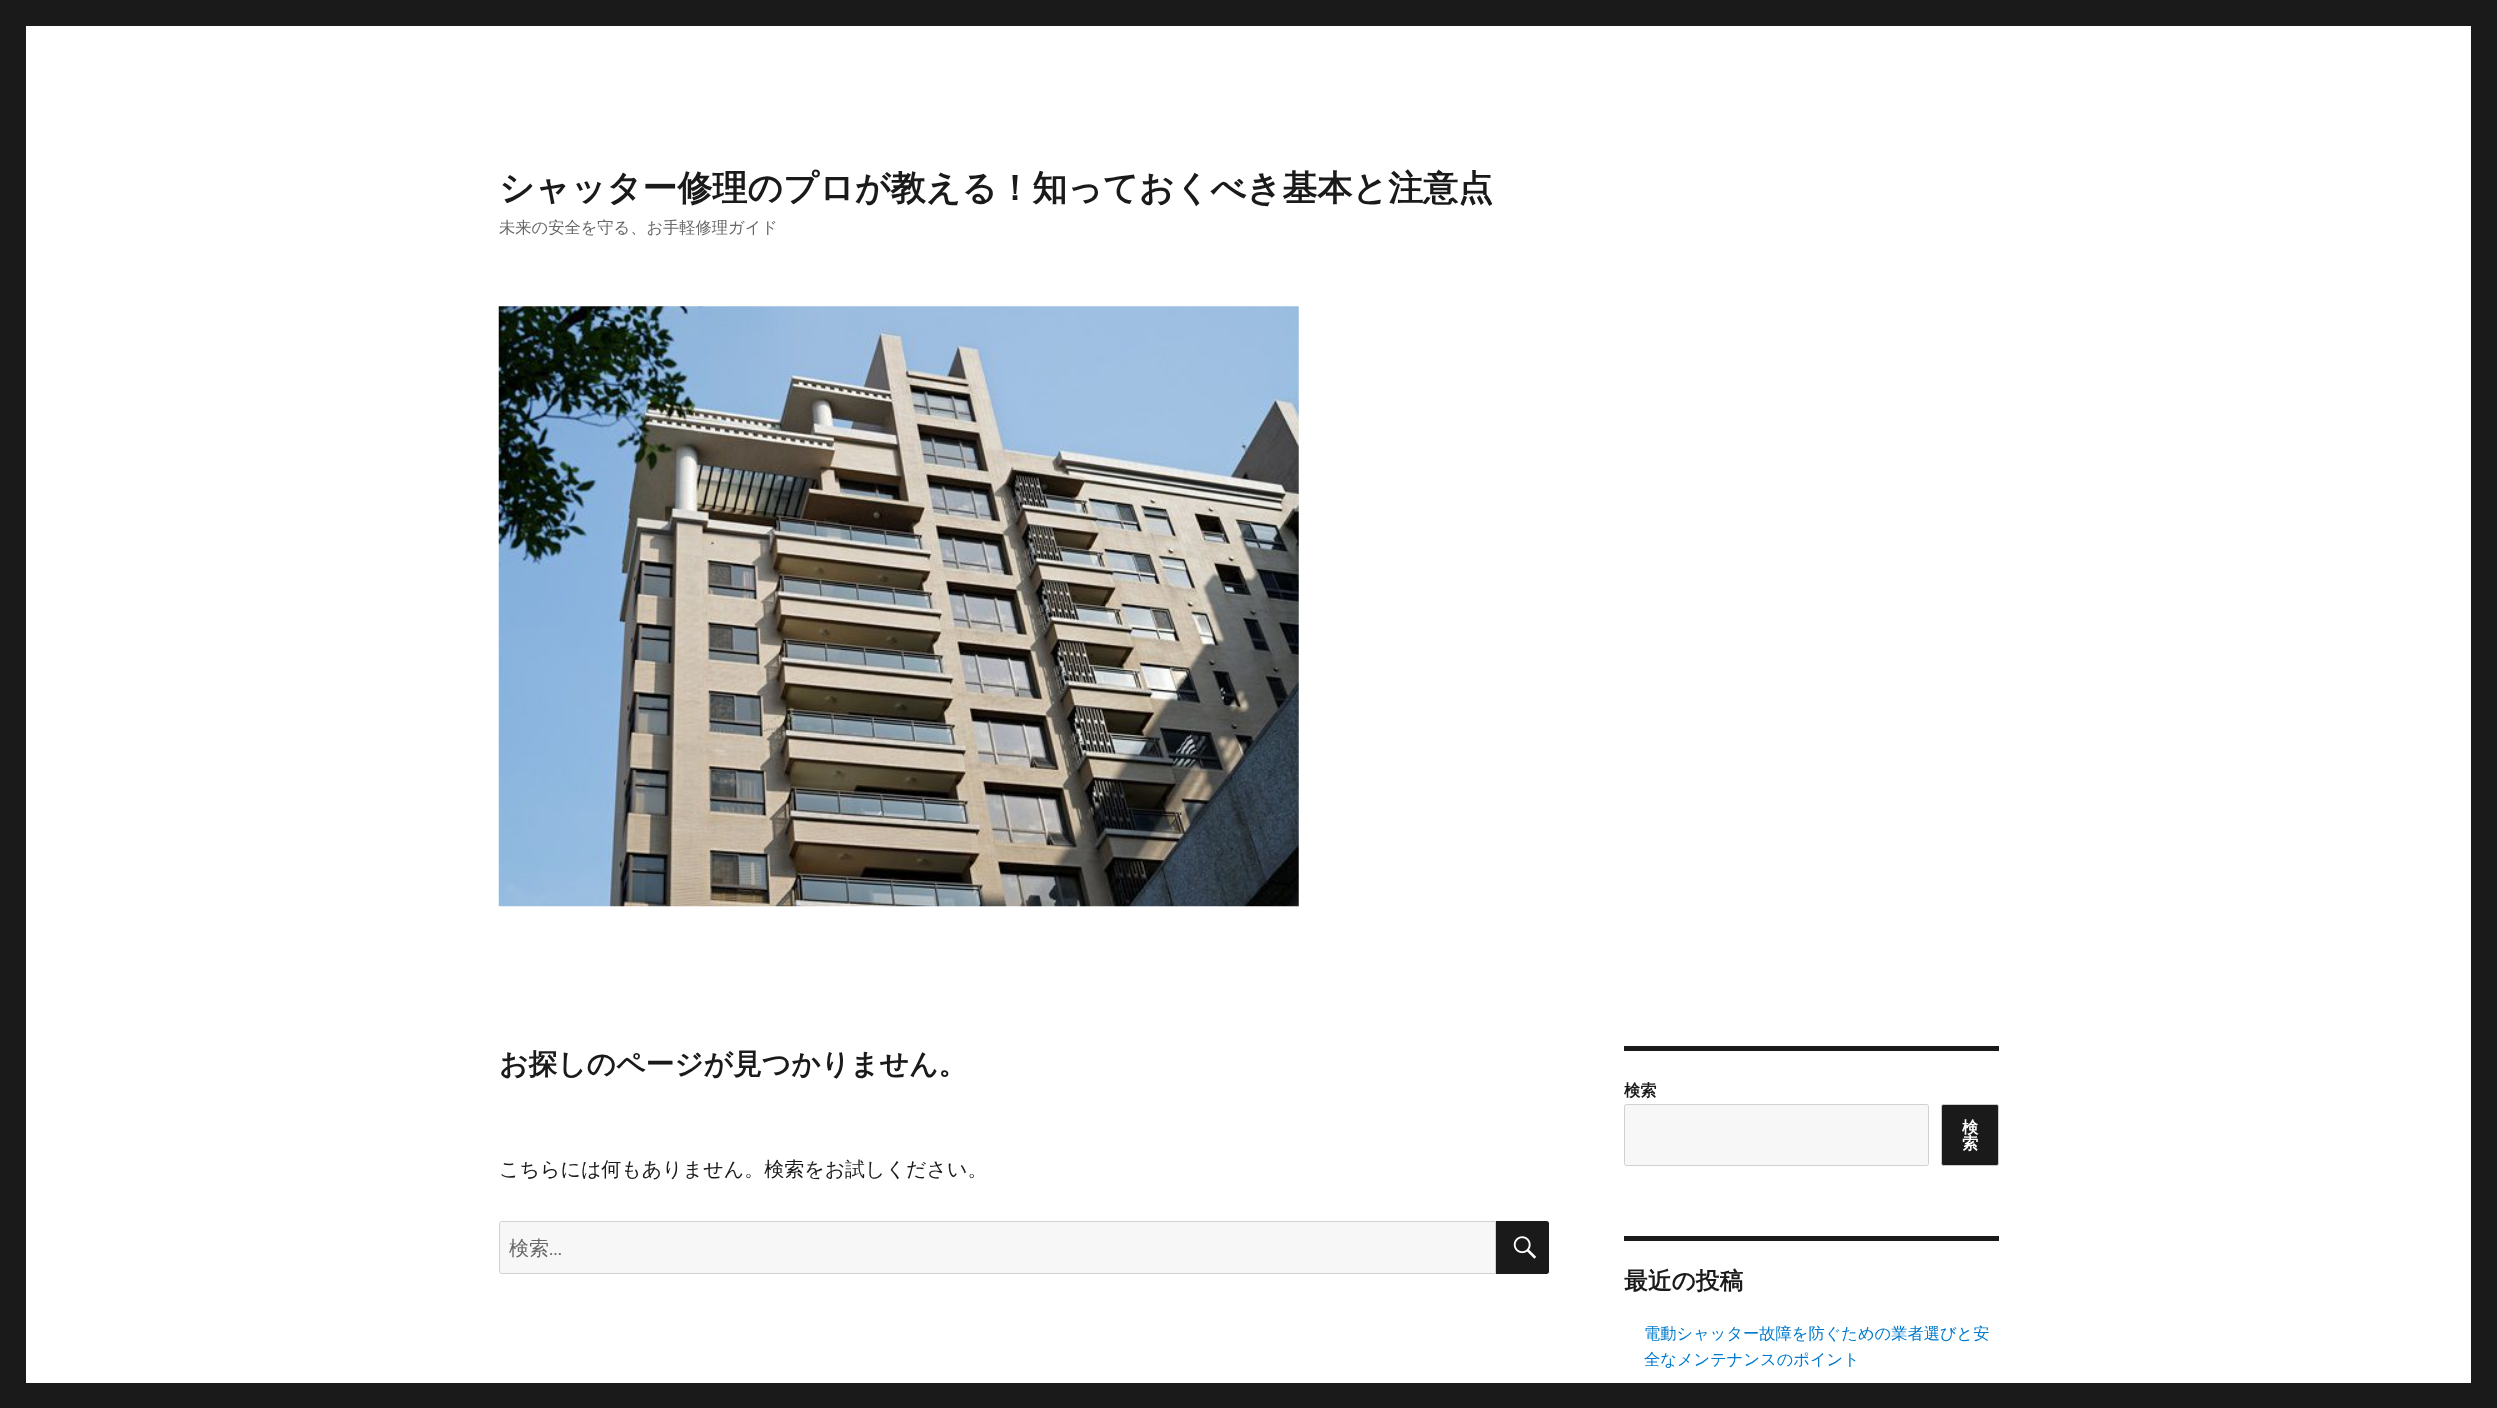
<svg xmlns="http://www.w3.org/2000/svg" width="2497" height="1408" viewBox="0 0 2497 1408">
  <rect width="100%" height="100%" fill="#1a1a1a"/>
  <path d="M26 26h2445v1357H26z" fill="#fff"/>
  <image x="498" y="306" width="801" height="601" href="img/1.png"/>
  <path d="M501.5 1221.5H1495.5V1273.5H501.5C500.5 1273.5 499.5 1272.5 499.5 1271.5V1223.5C499.5 1222.5 500.5 1221.5 501.5 1221.5Z" fill="#f7f7f7" stroke="#d1d1d1"/>
  <path d="M1496 1221H1546.5C1548 1221 1549 1222 1549 1223.5V1271.5C1549 1273 1548 1274 1546.5 1274H1496Z" fill="#1a1a1a"/>
  <image x="1513" y="1236" width="24" height="23" href="img/2.png"/>
  <path d="M1624 1046h375v5H1624z" fill="#1a1a1a"/>
  <rect x="1624.5" y="1104.5" width="304" height="61" rx="2" fill="#f7f7f7" stroke="#d1d1d1"/>
  <rect x="1941.5" y="1104.5" width="57" height="61" rx="2" fill="#1a1a1a" stroke="#ccc"/>
  <path d="M1624 1236h375v5H1624z" fill="#1a1a1a"/>
  <text x="499" y="200" font-family="WenQuanYi Zen Hei" font-size="35" font-weight="bold" fill="#1a1a1a">シャッター修理のプロが教える！知っておくべき基本と注意点</text>
  <text x="499" y="233" font-family="WenQuanYi Zen Hei" font-size="16.25" font-weight="500" fill="#686868">未来の安全を守る、お手軽修理ガイド</text>
  <text x="499" y="1074" font-family="WenQuanYi Zen Hei" font-size="28.75" font-weight="bold" fill="#1a1a1a">お探しのページが見つかりません。</text>
  <text x="499" y="1176" font-family="WenQuanYi Zen Hei" font-size="20" font-weight="500" fill="#1a1a1a">こちらには何もありません。検索をお試しください。</text>
  <text x="509" y="1255" font-family="WenQuanYi Zen Hei" font-size="20" font-weight="500" fill="#686868">検索</text>
  <text x="549" y="1255" font-family="Montserrat" font-size="20" font-weight="100" fill="#686868">…</text>
  <text x="1624" y="1096" font-family="WenQuanYi Zen Hei" font-size="16.25" font-weight="bold" fill="#1a1a1a">検索</text>
  <g font-family="WenQuanYi Zen Hei" font-size="16.25" font-weight="bold" letter-spacing="1" fill="#fff">
    <text x="1962" y="1133">検</text>
    <text x="1962" y="1149">索</text>
  </g>
  <text x="1624" y="1289" font-family="WenQuanYi Zen Hei" font-size="23.75" font-weight="bold" fill="#1a1a1a">最近の投稿</text>
  <g font-family="WenQuanYi Zen Hei" font-size="16.25" font-weight="500" fill="#007acc">
    <text x="1644" y="1339">電動シャッター故障を防ぐための業者選びと安</text>
    <text x="1644" y="1365">全なメンテナンスのポイント</text>
  </g>
</svg>
